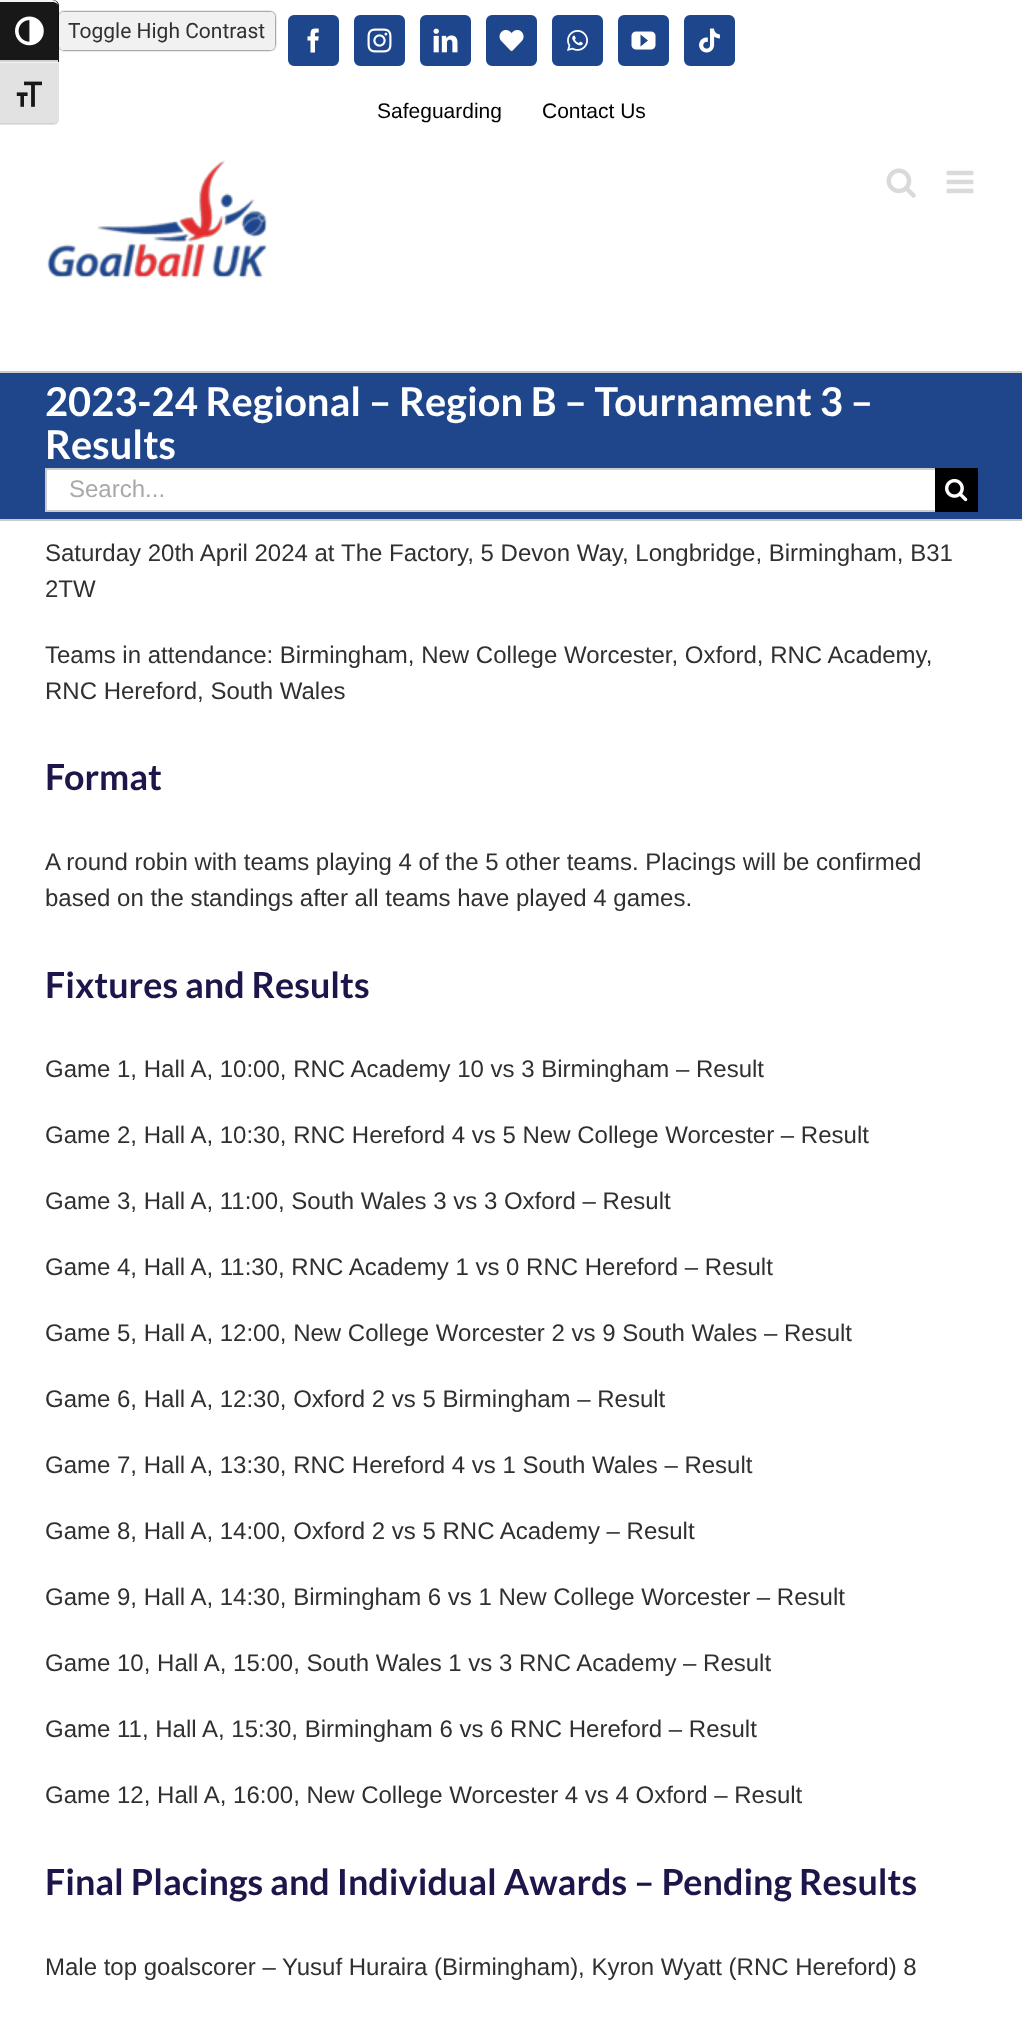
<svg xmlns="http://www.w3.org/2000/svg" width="1022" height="2020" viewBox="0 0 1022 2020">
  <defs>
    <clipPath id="clip1"><path d="M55 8H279V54H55ZM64 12H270C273 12 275 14 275 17V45C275 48 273 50 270 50H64C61 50 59 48 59 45V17C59 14 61 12 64 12Z" clip-rule="evenodd"/></clipPath>
  </defs>
  <rect width="100%" height="100%" fill="#fff"/>
  <path d="M0 0H53C56.5 0 59 2.5 59 6V62H0Z" fill="#181818"/>
  <path d="M0 0V2H52C56 2 58 4 58 6C58 3 56 0 52 0Z" fill="#f5f5f5"/>
  <path d="M0 60h58v2H0z" fill="#d2d2d2"/>
  <image x="15" y="16" width="29" height="30" href="img/1.png"/>
  <g clip-path="url(#clip1)">
    <rect x="59" y="12" width="216" height="38" rx="5" fill="#000" filter="blur(1px)"/>
  </g>
  <rect x="59" y="12" width="216" height="38" rx="5" fill="#f0f0f0ed"/>
  <path d="M0 62H59V119C59 122.5 56.5 125 53 125H0Z" fill="#e2e2e2"/>
  <path d="M0 62h58v1H0z" fill="#f5f5f5"/>
  <path d="M52 124C56 124 58 122 58 118C58 121 56 123 52 123H0V124Z" fill="#d2d2d2"/>
  <image x="16" y="81" width="26" height="26" href="img/2.png"/>
  <rect x="289" y="16" width="49" height="49" rx="5" fill="#1e468c" stroke="#1e468c" stroke-width="2"/>
  <image x="307" y="28" width="12" height="25" href="img/3.png"/>
  <rect x="355" y="16" width="49" height="49" rx="5" fill="#1e468c" stroke="#1e468c" stroke-width="2"/>
  <image x="367" y="28" width="25" height="25" href="img/4.png"/>
  <rect x="421" y="16" width="49" height="49" rx="5" fill="#1e468c" stroke="#1e468c" stroke-width="2"/>
  <image x="433" y="28" width="25" height="25" href="img/5.png"/>
  <rect x="487" y="16" width="49" height="49" rx="5" fill="#1e468c" stroke="#1e468c" stroke-width="2"/>
  <image x="499" y="30" width="25" height="21" href="img/6.png"/>
  <rect x="553" y="16" width="49" height="49" rx="5" fill="#1e468c" stroke="#1e468c" stroke-width="2"/>
  <image x="567" y="30" width="21" height="21" href="img/7.png"/>
  <rect x="619" y="16" width="49" height="49" rx="5" fill="#1e468c" stroke="#1e468c" stroke-width="2"/>
  <image x="631" y="31" width="25" height="19" href="img/8.png"/>
  <rect x="685" y="16" width="49" height="49" rx="5" fill="#1e468c" stroke="#1e468c" stroke-width="2"/>
  <image x="699" y="28" width="21" height="25" href="img/9.png"/>
  <image x="47" y="160" width="220" height="118" href="img/10.png"/>
  <image x="886" y="168" width="30" height="30" href="img/11.png"/>
  <image x="946" y="170" width="28" height="24" href="img/12.png"/>
  <path d="M0 373h1022v146H0z" fill="#1f468b"/>
  <path d="M0 371h1022v2H0z" fill="#ccc"/>
  <path d="M0 519h1022v2H0z" fill="#ccc"/>
  <path d="M47 470h888v40H47z" fill="#fff"/>
  <path d="M45 468h890v2H45z" fill="#ccc"/>
  <path d="M45 510h890v2H45z" fill="#ccc"/>
  <path d="M45 468h2v44H45z" fill="#ccc"/>
  <path d="M935 468h43v44H935z" fill="#000"/>
  <image x="945" y="478" width="23" height="24" href="img/13.png"/>
  <text x="68" y="38" font-family="Roboto" font-size="21" fill="#303030">Toggle High Contrast</text>
  <g font-family="Liberation Sans" font-size="21" fill="#000">
    <text x="377" y="118">Safeguarding</text>
    <text x="542" y="118">Contact Us</text>
  </g>
  <g font-family="Lato" font-size="39.8" font-weight="bold" fill="#fff">
    <text x="45" y="416">2023-24 Regional – Region B – Tournament 3 –</text>
    <text x="45" y="459">Results</text>
  </g>
  <text x="69" y="497" font-family="Liberation Sans" font-size="24" fill="#aaa9a9">Search...</text>
  <g font-family="Liberation Sans" font-size="24" fill="#303030">
    <text x="45" y="561">Saturday 20th April 2024 at</text>
    <text x="341" y="561">The Factory, 5 Devon Way, Longbridge, Birmingham, B31</text>
    <text x="45" y="597">2TW</text>
    <text x="45" y="663">Teams in attendance: Birmingham, New College Worcester, Oxford, RNC Academy,</text>
    <text x="45" y="699">RNC Hereford, South Wales</text>
  </g>
  <text x="45" y="790" font-family="Lato" font-size="35.9" font-weight="bold" fill="#1d164a">Format</text>
  <g font-family="Liberation Sans" font-size="24" fill="#303030">
    <text x="45" y="870">A round robin with teams playing 4 of the 5 other teams. Placings will be confirmed</text>
    <text x="45" y="906">based on the standings after all teams have played 4 games.</text>
  </g>
  <text x="45" y="998" font-family="Lato" font-size="35.9" font-weight="bold" fill="#1d164a">Fixtures and Results</text>
  <g font-family="Liberation Sans" font-size="24" fill="#303030">
    <text x="45" y="1077">Game 1, Hall A, 10:00, RNC Academy 10 vs 3 Birmingham – Result</text>
    <text x="45" y="1143">Game 2, Hall A, 10:30, RNC Hereford 4 vs 5 New College Worcester – Result</text>
    <text x="45" y="1209">Game 3, Hall A, 11:00, South Wales 3 vs 3 Oxford – Result</text>
    <text x="45" y="1275">Game 4, Hall A, 11:30, RNC Academy 1 vs 0 RNC Hereford – Result</text>
    <text x="45" y="1341">Game 5, Hall A, 12:00, New College Worcester 2 vs 9 South Wales – Result</text>
    <text x="45" y="1407">Game 6, Hall A, 12:30, Oxford 2 vs 5 Birmingham – Result</text>
    <text x="45" y="1473">Game 7, Hall A, 13:30, RNC Hereford 4 vs 1 South Wales – Result</text>
    <text x="45" y="1539">Game 8, Hall A, 14:00, Oxford 2 vs 5 RNC Academy – Result</text>
    <text x="45" y="1605">Game 9, Hall A, 14:30, Birmingham 6 vs 1 New College Worcester – Result</text>
    <text x="45" y="1671">Game 10, Hall A, 15:00, South Wales 1 vs 3 RNC Academy – Result</text>
    <text x="45" y="1737">Game 11, Hall A, 15:30, Birmingham 6 vs 6 RNC Hereford – Result</text>
    <text x="45" y="1803">Game 12, Hall A, 16:00, New College Worcester 4 vs 4 Oxford – Result</text>
  </g>
  <text x="45" y="1895" font-family="Lato" font-size="35.9" font-weight="bold" fill="#1d164a">Final Placings and Individual Awards – Pending Results</text>
  <text x="45" y="1975" font-family="Liberation Sans" font-size="24" fill="#303030">Male top goalscorer – Yusuf Huraira (Birmingham), Kyron Wyatt (RNC Hereford) 8</text>
</svg>
